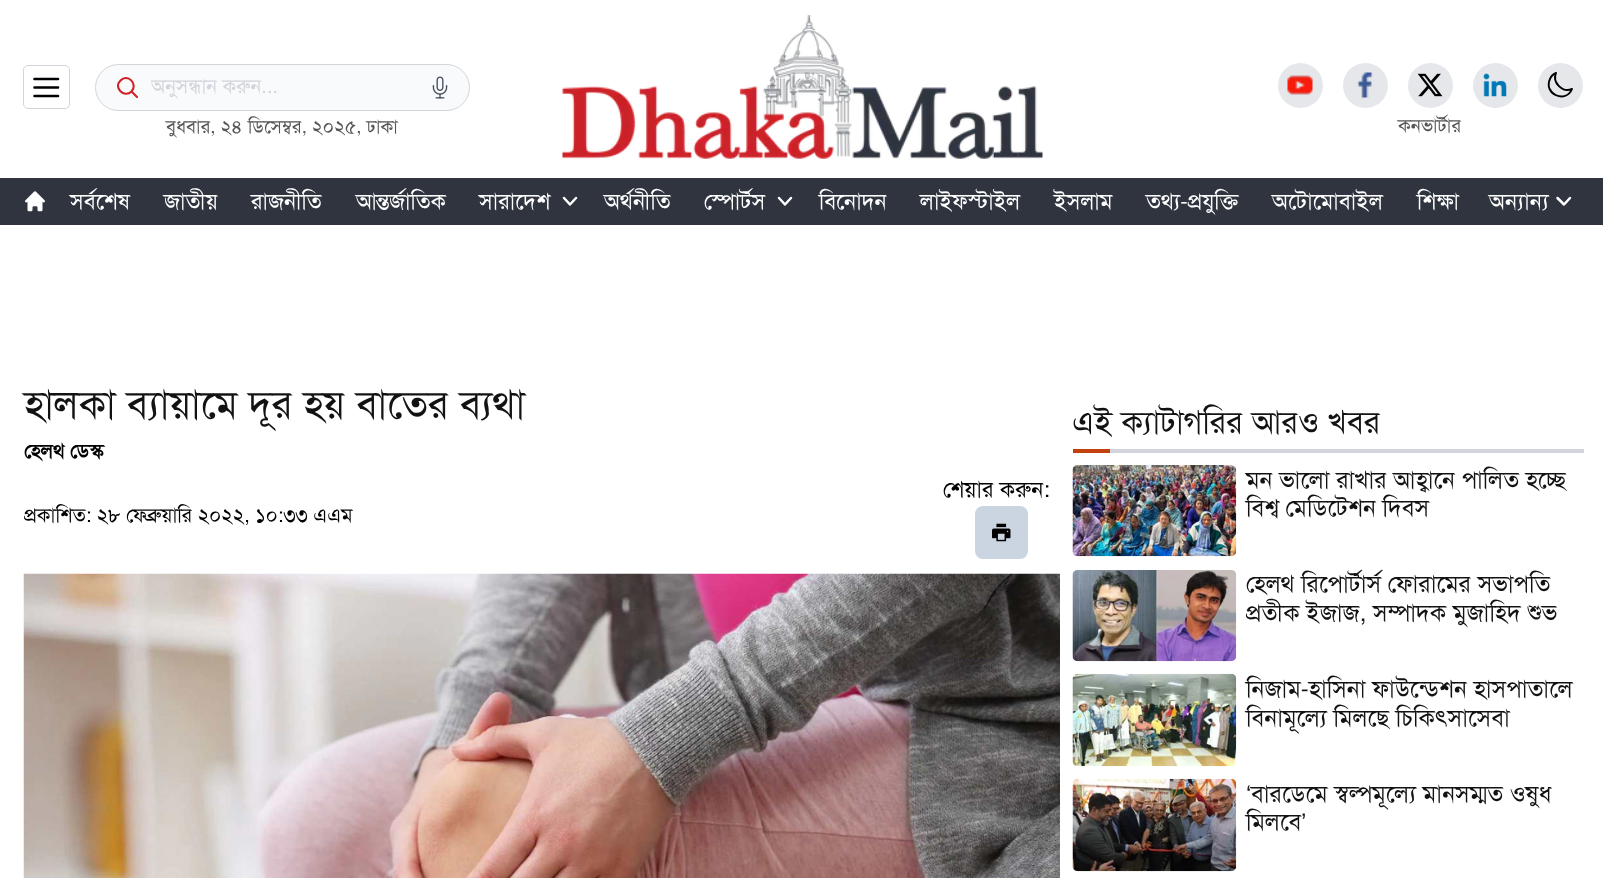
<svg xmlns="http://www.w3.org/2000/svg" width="1603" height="878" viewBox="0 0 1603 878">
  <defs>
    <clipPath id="clip1"><path d="M151 74h278v26H151z"/></clipPath>
  </defs>
  <rect width="100%" height="100%" fill="#fff"/>
  <rect x="23.5" y="65.5" width="46" height="43" rx="4.5" fill="none" stroke="#d1d5db"/>
  <path d="M34.5 79H58M34.5 87.5H58M34.5 96H58" fill="none" stroke="#000" stroke-width="2.6" stroke-linecap="round" stroke-linejoin="round"/>
  <rect x="95.5" y="64.5" width="374" height="46" rx="23" fill="#f9fafb" stroke="#d1d5db"/>
  <path d="M137 97L131.5 91.5M131.5 91.5C138.5 84 127.5 73 120.5 80.5C113 87.5 124 98.5 131.5 91.5Z" fill="none" stroke="#d12026" stroke-width="2.1" stroke-linecap="round" stroke-linejoin="round"/>
  <image x="432" y="76" width="16" height="23" href="img/1.png"/>
  <image x="562" y="15" width="481" height="144" href="img/2.png"/>
  <circle cx="1300.5" cy="85.5" r="22.5" fill="#e5e7eb"/>
  <image x="1287" y="75" width="26" height="20" href="img/3.png"/>
  <circle cx="1365.5" cy="85.5" r="22.5" fill="#e5e7eb"/>
  <image x="1357" y="72" width="16" height="26" href="img/4.png"/>
  <circle cx="1430.5" cy="85.5" r="22.5" fill="#e5e7eb"/>
  <image x="1417" y="73" width="26" height="24" href="img/5.png"/>
  <circle cx="1495.5" cy="85.5" r="22.5" fill="#e5e7eb"/>
  <image x="1483" y="73" width="24" height="24" href="img/6.png"/>
  <circle cx="1560.5" cy="85.5" r="22.5" fill="#e5e7eb"/>
  <path d="M1572 89C1562.5 93 1552 82.5 1556 73C1553.5 74 1551 76 1550 79C1543 94 1566 104 1572 89Z" fill="none" stroke="#000" stroke-width="1.9" stroke-linecap="round" stroke-linejoin="round"/>
  <path d="M0 178h1603v47H0z" fill="#2f343f"/>
  <image x="25" y="191" width="20" height="21" href="img/7.png"/>
  <path d="M576 198L570 204.5L564 198" fill="none" stroke="#fff" stroke-width="2.5" stroke-linecap="round" stroke-linejoin="round"/>
  <path d="M791 198L785 204.5L779 198" fill="none" stroke="#fff" stroke-width="2.5" stroke-linecap="round" stroke-linejoin="round"/>
  <path d="M1570 198L1564 204.5L1557.5 198" fill="none" stroke="#fff" stroke-width="2.5" stroke-linecap="round" stroke-linejoin="round"/>
  <rect x="975" y="506" width="53" height="53" rx="8" fill="#cbd5e1"/>
  <image x="992" y="523" width="19" height="19" href="img/8.png"/>
  <image x="23" y="573" width="1037" height="305" href="img/9.png"/>
  <path d="M1110 449h474v4H1110z" fill="#d1d5db"/>
  <path d="M1073 449h37v4H1073z" fill="#c2410c"/>
  <image x="1072" y="465" width="165" height="92" href="img/10.png"/>
  <image x="1072" y="570" width="165" height="92" href="img/11.png"/>
  <image x="1072" y="673" width="165" height="94" href="img/12.png"/>
  <image x="1072" y="778" width="165" height="94" href="img/13.png"/>
  <g clip-path="url(#clip1)">
    <text x="151" y="93" font-family="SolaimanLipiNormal" font-size="20" fill="#d1d5db">অনুসন্ধান করুন...</text>
  </g>
  <g font-family="SolaimanLipiNormal" font-size="18.75" fill="#555">
    <text x="166" y="133">বুধবার, ২৪ ডিসেম্বর, ২০২৫, ঢাকা</text>
    <text x="1398" y="132">কনভার্টার</text>
  </g>
  <g font-family="SolaimanLipiNormal" font-size="22.5" fill="#fff">
    <text x="70" y="209">সর্বশেষ</text>
    <text x="164" y="209">জাতীয়</text>
    <text x="251" y="209">রাজনীতি</text>
    <text x="356" y="209">আন্তর্জাতিক</text>
    <text x="479" y="209">সারাদেশ</text>
    <text x="604" y="209">অর্থনীতি</text>
    <text x="704" y="209">স্পোর্টস</text>
    <text x="819" y="209">বিনোদন</text>
    <text x="920" y="209">লাইফস্টাইল</text>
    <text x="1054" y="209">ইসলাম</text>
    <text x="1146" y="209">তথ্য-প্রযুক্তি</text>
    <text x="1272" y="209">অটোমোবাইল</text>
    <text x="1417" y="209">শিক্ষা</text>
    <text x="1489" y="209">অন্যান্য</text>
  </g>
  <text x="24" y="418" font-family="SolaimanLipiNormal" font-size="40" fill="#121212">হালকা ব্যায়ামে দূর হয় বাতের ব্যথা</text>
  <text x="24" y="458" font-family="SolaimanLipiNormal" font-size="20" font-weight="bold" fill="#000">হেলথ ডেস্ক</text>
  <text x="943" y="497" font-family="SolaimanLipiNormal" font-size="22.5" fill="#000">শেয়ার করুন:</text>
  <text x="24" y="522" font-family="SolaimanLipiNormal" font-size="20" fill="#000">প্রকাশিত: ২৮ ফেব্রুয়ারি ২০২২, ১০:৩৩ এএম</text>
  <text x="1072" y="433" font-family="SolaimanLipiNormal" font-size="32" fill="#121212">এই ক্যাটাগরির আরও খবর</text>
  <g font-family="SolaimanLipiNormal" font-size="24" fill="#121212">
    <text x="1246" y="488">মন ভালো রাখার আহ্বানে পালিত হচ্ছে</text>
    <text x="1246" y="516">বিশ্ব মেডিটেশন দিবস</text>
    <text x="1246" y="592">হেলথ রিপোর্টার্স ফোরামের সভাপতি</text>
    <text x="1246" y="621">প্রতীক ইজাজ, সম্পাদক মুজাহিদ শুভ</text>
    <text x="1246" y="697">নিজাম-হাসিনা ফাউন্ডেশন হাসপাতালে</text>
    <text x="1246" y="726">বিনামূল্যে মিলছে চিকিৎসাসেবা</text>
  </g>
  <text x="1246" y="802" font-family="Liberation Sans" font-size="24" fill="#121212">‘</text>
  <g font-family="SolaimanLipiNormal" font-size="24" fill="#121212">
    <text x="1251" y="802">বারডেমে স্বল্পমূল্যে মানসম্মত ওষুধ</text>
    <text x="1246" y="830">মিলবে</text>
  </g>
  <text x="1301" y="830" font-family="Liberation Sans" font-size="24" fill="#121212">’</text>
</svg>
